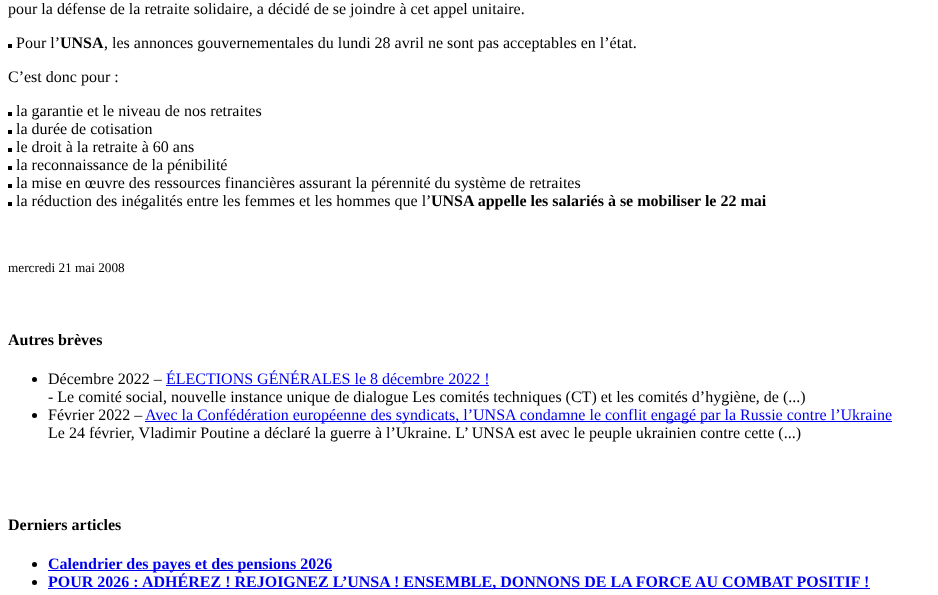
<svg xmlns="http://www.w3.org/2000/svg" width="938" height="595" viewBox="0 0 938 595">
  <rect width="100%" height="100%" fill="#fff"/>
  <path d="M8 44h4v4H8z" fill="#000"/>
  <path d="M8 112h4v4H8z" fill="#000"/>
  <path d="M8 130h4v4H8z" fill="#000"/>
  <path d="M8 148h4v4H8z" fill="#000"/>
  <path d="M8 166h4v4H8z" fill="#000"/>
  <path d="M8 184h4v4H8z" fill="#000"/>
  <path d="M8 202h4v4H8z" fill="#000"/>
  <circle cx="34.5" cy="379.5" r="2.5" fill="#000"/>
  <path d="M166 385h323v1H166z" fill="#00e"/>
  <circle cx="34.5" cy="415.5" r="2.5" fill="#000"/>
  <path d="M145 421h747v1H145z" fill="#00e"/>
  <circle cx="34.5" cy="564.5" r="2.5" fill="#000"/>
  <path d="M48 570h284v1H48z" fill="#00e"/>
  <circle cx="34.5" cy="582.5" r="2.5" fill="#000"/>
  <path d="M48 588h822v1H48z" fill="#00e"/>
  <g font-family="Liberation Serif" font-size="16" fill="#000">
    <text x="8" y="14">pour la défense de la retraite solidaire, a décidé de se joindre à cet appel unitaire.</text>
    <text x="16" y="48">Pour l’</text>
  </g>
  <text x="60" y="48" font-family="Liberation Serif" font-size="16" font-weight="bold" fill="#000">UNSA</text>
  <g font-family="Liberation Serif" font-size="16" fill="#000">
    <text x="104" y="48">, les annonces gouvernementales du lundi 28 avril ne sont pas acceptables en l’état.</text>
    <text x="8" y="82">C’est donc pour :</text>
    <text x="16" y="116">la garantie et le niveau de nos retraites</text>
    <text x="16" y="134">la durée de cotisation</text>
    <text x="16" y="152">le droit à la retraite à 60 ans</text>
    <text x="16" y="170">la reconnaissance de la pénibilité</text>
    <text x="16" y="188">la mise en œuvre des ressources financières assurant la pérennité du système de retraites</text>
    <text x="16" y="206">la réduction des inégalités entre les femmes et les hommes que l’</text>
  </g>
  <text x="431" y="206" font-family="Liberation Serif" font-size="16" font-weight="bold" fill="#000">UNSA appelle les salariés à se mobiliser le 22 mai</text>
  <text x="8" y="272" font-family="Liberation Serif" font-size="13.25" fill="#000">mercredi 21 mai 2008</text>
  <text x="8" y="345" font-family="Liberation Serif" font-size="16" font-weight="bold" fill="#000">Autres brèves</text>
  <text x="48" y="384" font-family="Liberation Serif" font-size="16" fill="#000">Décembre 2022 –</text>
  <text x="166" y="384" font-family="Liberation Serif" font-size="16" fill="#00e">ÉLECTIONS GÉNÉRALES le 8 décembre 2022 !</text>
  <g font-family="Liberation Serif" font-size="16" fill="#000">
    <text x="48" y="402">- Le comité social, nouvelle instance unique de dialogue Les comités techniques (CT) et les comités d’hygiène, de (...)</text>
    <text x="48" y="420">Février 2022 –</text>
  </g>
  <text x="145" y="420" font-family="Liberation Serif" font-size="16" fill="#00e">Avec la Confédération européenne des syndicats, l’UNSA condamne le conflit engagé par la Russie contre l’Ukraine</text>
  <text x="48" y="438" font-family="Liberation Serif" font-size="16" fill="#000">Le 24 février, Vladimir Poutine a déclaré la guerre à l’Ukraine. L’ UNSA est avec le peuple ukrainien contre cette (...)</text>
  <text x="8" y="530" font-family="Liberation Serif" font-size="16" font-weight="bold" fill="#000">Derniers articles</text>
  <g font-family="Liberation Serif" font-size="16" font-weight="bold" fill="#00e">
    <text x="48" y="569">Calendrier des payes et des pensions 2026</text>
    <text x="48" y="587">POUR 2026 :</text>
    <text x="142" y="587">ADHÉREZ ! REJOIGNEZ L’UNSA ! ENSEMBLE, DONNONS DE LA FORCE AU COMBAT POSITIF !</text>
  </g>
</svg>
